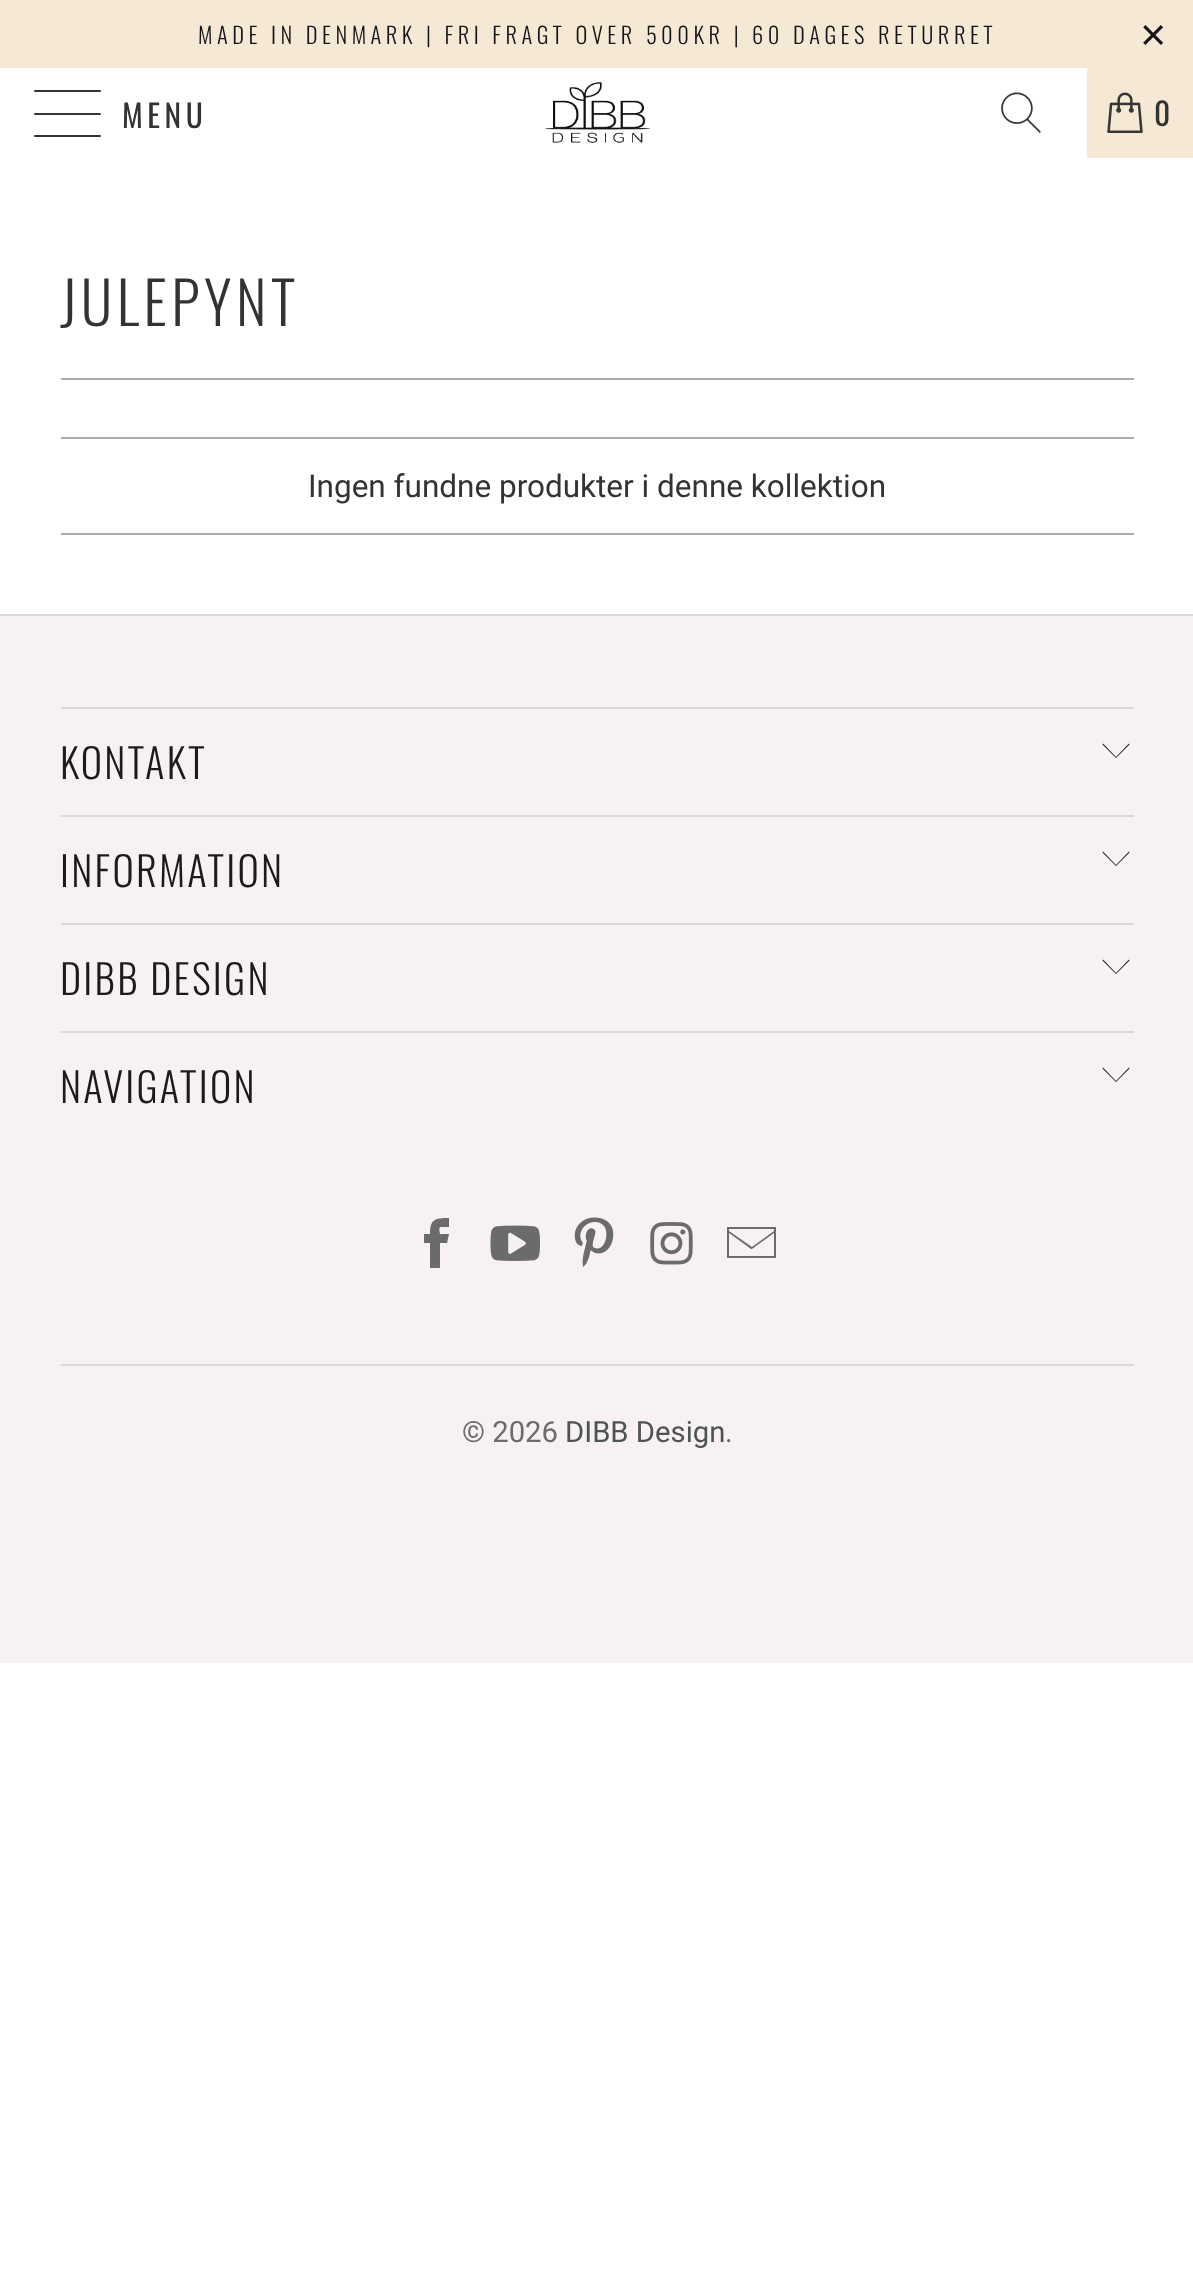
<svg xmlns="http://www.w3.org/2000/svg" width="1193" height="2282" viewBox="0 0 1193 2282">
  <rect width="100%" height="100%" fill="#fff"/>
  <path d="M0 0h1193v68H0z" fill="#f5e9d6"/>
  <rect x="34" y="90" width="67" height="2" rx="1" fill="#363636"/>
  <rect x="34" y="113" width="67" height="2" rx="1" fill="#363636"/>
  <rect x="34" y="135" width="67" height="2" rx="1" fill="#363636"/>
  <image x="545" y="82" width="105" height="61" href="img/1.png"/>
  <image x="1001" y="92" width="40" height="41" href="img/2.png"/>
  <path d="M1087 68h106v90H1087z" fill="#f5e9d6"/>
  <image x="1107" y="92" width="36" height="41" href="img/3.png"/>
  <path d="M61 378h1073v2H61z" fill="#aaa"/>
  <path d="M61 437h1073v2H61z" fill="#aaa"/>
  <path d="M61 533h1073v2H61z" fill="#aaa"/>
  <path d="M0 616h1193v1047H0z" fill="#f7f1f1"/>
  <path d="M0 614h1193v2H0z" fill="#d9d9d9"/>
  <path d="M61 707h1073v2H61z" fill="#d9d9d9"/>
  <path d="M1116 758L1102.5 744.5L1103 743.5L1116 757L1129 743.5L1129.5 744.5Z" fill="#1b1b1b"/>
  <path d="M61 815h1073v2H61z" fill="#d9d9d9"/>
  <path d="M1116 866L1102.5 852.5L1103 851.5L1116 865L1129 851.5L1129.5 852.5Z" fill="#1b1b1b"/>
  <path d="M61 923h1073v2H61z" fill="#d9d9d9"/>
  <path d="M1116 974L1102.5 960.5L1103 959.5L1116 973L1129 959.5L1129.5 960.5Z" fill="#1b1b1b"/>
  <path d="M61 1031h1073v2H61z" fill="#d9d9d9"/>
  <path d="M1116 1082L1102.5 1068.5L1103 1067.5L1116 1081L1129 1067.5L1129.5 1068.5Z" fill="#1b1b1b"/>
  <path d="M441 1227H449V1218C435 1218 430 1219 430 1234H424V1243H430V1268H440V1243H447L449 1234H440C440 1232 438 1227 441 1227Z" fill="#6b6b6b"/>
  <image x="490" y="1225" width="50" height="36" href="img/4.png"/>
  <image x="574" y="1217" width="40" height="50" href="img/5.png"/>
  <image x="650" y="1222" width="43" height="43" href="img/6.png"/>
  <path d="M727 1227V1258H776V1227ZM774 1229V1231L752 1247L729 1231V1229ZM729 1256V1233L747 1246C752 1250 751 1250 756 1246L774 1233V1256Z" fill="#6b6b6b"/>
  <path d="M61 1364h1073v2H61z" fill="#d9d9d9"/>
  <text x="198" y="44" font-family="Oswald" font-size="22.5" font-weight="300" letter-spacing="4.5" fill="#151515">MADE IN DENMARK | FRI FRAGT OVER 500KR | 60 DAGES RETURRET</text>
  <text x="1140" y="50" font-family="Liberation Sans" font-size="45" letter-spacing="4.5" fill="#151515">×</text>
  <text x="122" y="128" font-family="Oswald" font-size="31.5" letter-spacing="4.5" fill="#333">MENU</text>
  <text x="1154" y="126" font-family="Oswald" font-size="31.5" letter-spacing="2.25" fill="#333">0</text>
  <text x="60" y="326" font-family="Oswald" font-size="58.5" font-weight="300" letter-spacing="4.5" fill="#333">JULEPYNT</text>
  <text x="308" y="497" font-family="Roboto" font-size="31.5" fill="#333">Ingen fundne produkter i denne kollektion</text>
  <g font-family="Oswald" font-size="40.5" font-weight="300" letter-spacing="2.25" fill="#1b1b1b">
    <text x="60" y="779">KONTAKT</text>
    <text x="60" y="887">INFORMATION</text>
    <text x="60" y="995">DIBB DESIGN</text>
    <text x="60" y="1103">NAVIGATION</text>
  </g>
  <text x="462" y="1442" font-family="Roboto" font-size="29.25" fill="#6b6b6b">© 2026</text>
  <text x="565" y="1442" font-family="Roboto" font-size="29.25" fill="#4e5353">DIBB Design</text>
  <text x="725" y="1442" font-family="Roboto" font-size="29.25" fill="#6b6b6b">.</text>
</svg>
